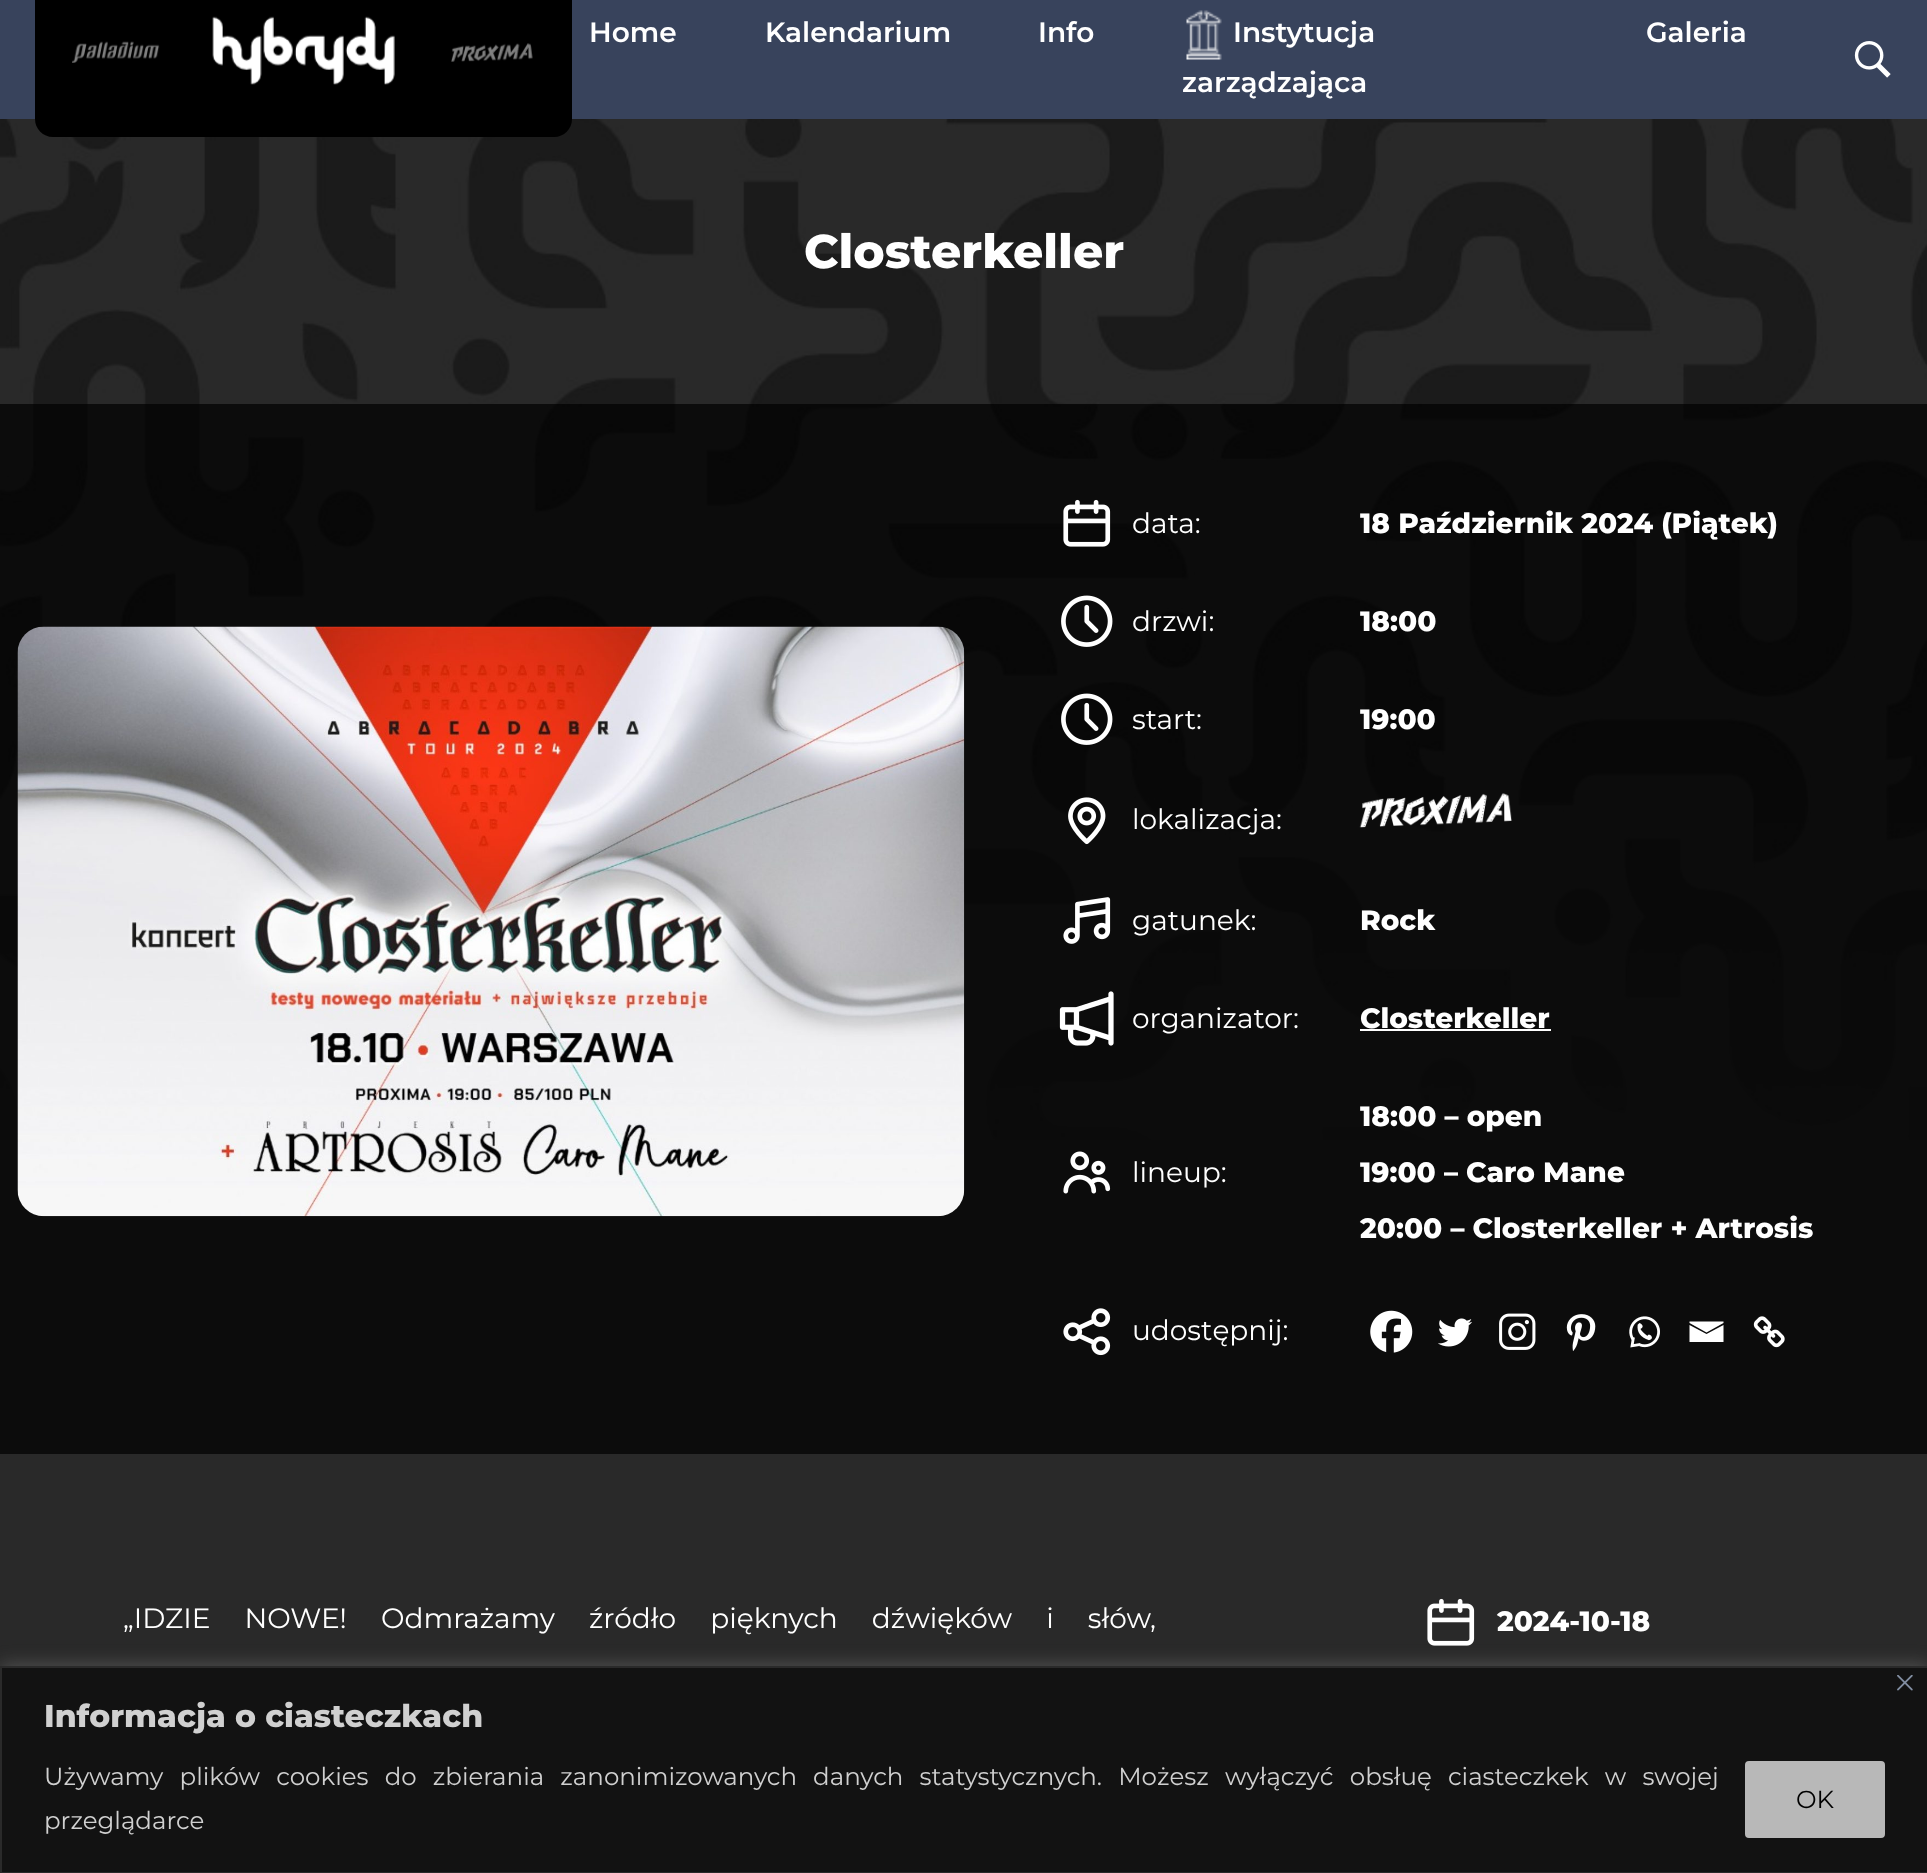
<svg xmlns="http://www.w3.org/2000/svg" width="1927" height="1873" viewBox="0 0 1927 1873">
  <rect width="100%" height="100%" fill="#292929"/>
  <image x="0" y="119" width="1927" height="1021" href="img/1.png"/>
  <path d="M0 0h1927v119H0z" fill="#38435c"/>
  <path d="M35 0H572V119C572 129 564 137 554 137H53C43 137 35 129 35 119Z" fill="#000"/>
  <image x="72" y="41" width="88" height="22" href="img/2.png"/>
  <image x="212" y="16" width="183" height="69" href="img/3.png"/>
  <image x="451" y="43" width="82" height="19" href="img/4.png"/>
  <image x="1186" y="10" width="36" height="50" href="img/5.png"/>
  <image x="1854" y="41" width="37" height="37" href="img/6.png"/>
  <path d="M0 404h1927v1050H0z" fill="#000000b3"/>
  <image x="17" y="626" width="948" height="591" href="img/7.png"/>
  <image x="1063" y="499" width="48" height="48" href="img/8.png"/>
  <image x="1061" y="595" width="52" height="52" href="img/9.png"/>
  <image x="1061" y="693" width="52" height="52" href="img/10.png"/>
  <image x="1068" y="797" width="38" height="48" href="img/11.png"/>
  <image x="1359" y="793" width="153" height="35" href="img/12.png"/>
  <image x="1063" y="897" width="48" height="47" href="img/13.png"/>
  <image x="1059" y="991" width="55" height="55" href="img/14.png"/>
  <path d="M1360 1029h191v2H1360z" fill="#fff"/>
  <image x="1063" y="1151" width="48" height="43" href="img/15.png"/>
  <image x="1063" y="1308" width="48" height="48" href="img/16.png"/>
  <image x="1370" y="1310" width="43" height="43" href="img/17.png"/>
  <image x="1438" y="1318" width="34" height="29" href="img/18.png"/>
  <image x="1499" y="1313" width="37" height="37" href="img/19.png"/>
  <image x="1566" y="1314" width="30" height="37" href="img/20.png"/>
  <image x="1629" y="1316" width="31" height="32" href="img/21.png"/>
  <path d="M1688 1321.5H1723.5V1323L1706.5 1332.5L1689.5 1323V1321.5M1689.5 1325L1706.5 1334L1723.5 1325V1342H1689.5V1325" fill="#fff"/>
  <image x="1753" y="1316" width="32" height="32" href="img/22.png"/>
  <image x="1427" y="1598" width="48" height="48" href="img/23.png"/>
  <path d="M0 1664h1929v209H0z" fill="#acabab4d" filter="blur(9px)"/>
  <path d="M1 1667h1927v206H1z" fill="#121212" stroke="#2a2a2a" stroke-width="2"/>
  <image x="1897" y="1675" width="16" height="16" href="img/24.png"/>
  <rect x="1747" y="1763" width="136" height="73" rx="2" fill="#b8b8b8" stroke="#b8b8b8" stroke-width="4"/>
  <g font-family="Montserrat" font-size="28" font-weight="600" fill="#fff">
    <text x="589" y="42">Home</text>
    <text x="765" y="42">Kalendarium</text>
    <text x="1038" y="42">Info</text>
    <text x="1233" y="42">Instytucja</text>
    <text x="1182" y="92">zarządzająca</text>
    <text x="1646" y="42">Galeria</text>
  </g>
  <text x="804" y="268" font-family="Montserrat" font-size="47.25" font-weight="800" fill="#fff">Closterkeller</text>
  <text x="1132" y="533" font-family="Montserrat" font-size="28" fill="#fff">data:</text>
  <text x="1360" y="533" font-family="Montserrat" font-size="28" font-weight="800" fill="#fff">18 Październik 2024 (Piątek)</text>
  <text x="1132" y="631" font-family="Montserrat" font-size="28" fill="#fff">drzwi:</text>
  <text x="1360" y="631" font-family="Montserrat" font-size="28" font-weight="800" fill="#fff">18:00</text>
  <text x="1132" y="729" font-family="Montserrat" font-size="28" fill="#fff">start:</text>
  <text x="1360" y="729" font-family="Montserrat" font-size="28" font-weight="800" fill="#fff">19:00</text>
  <g font-family="Montserrat" font-size="28" fill="#fff">
    <text x="1132" y="829">lokalizacja:</text>
    <text x="1132" y="930">gatunek:</text>
  </g>
  <text x="1360" y="930" font-family="Montserrat" font-size="28" font-weight="800" fill="#fff">Rock</text>
  <text x="1132" y="1028" font-family="Montserrat" font-size="28" fill="#fff">organizator:</text>
  <text x="1360" y="1028" font-family="Montserrat" font-size="28" font-weight="800" fill="#fff">Closterkeller</text>
  <text x="1132" y="1182" font-family="Montserrat" font-size="28" fill="#fff">lineup:</text>
  <g font-family="Montserrat" font-size="28" font-weight="800" fill="#fff">
    <text x="1360" y="1126">18:00 – open</text>
    <text x="1360" y="1182">19:00 – Caro Mane</text>
    <text x="1360" y="1238">20:00 – Closterkeller + Artrosis</text>
  </g>
  <g font-family="Montserrat" font-size="28" fill="#fff">
    <text x="1132" y="1340">udostępnij:</text>
    <text x="123" y="1628" word-spacing="26.75">„IDZIE NOWE! Odmrażamy źródło pięknych dźwięków i słów,</text>
  </g>
  <text x="1497" y="1631" font-family="Montserrat" font-size="28" font-weight="800" fill="#fff">2024-10-18</text>
  <text x="44" y="1727" font-family="Montserrat" font-size="31.5" font-weight="800" fill="#d0d0d0">Informacja o ciasteczkach</text>
  <g font-family="Montserrat" font-size="24.5" fill="#d0d0d0">
    <text x="44" y="1785" word-spacing="9.75">Używamy plików cookies do zbierania zanonimizowanych danych statystycznych. Możesz wyłączyć obsłuę ciasteczkek w swojej</text>
    <text x="44" y="1829">przeglądarce</text>
  </g>
  <text x="1796" y="1808" font-family="Montserrat" font-size="24.5" fill="#000">OK</text>
</svg>
